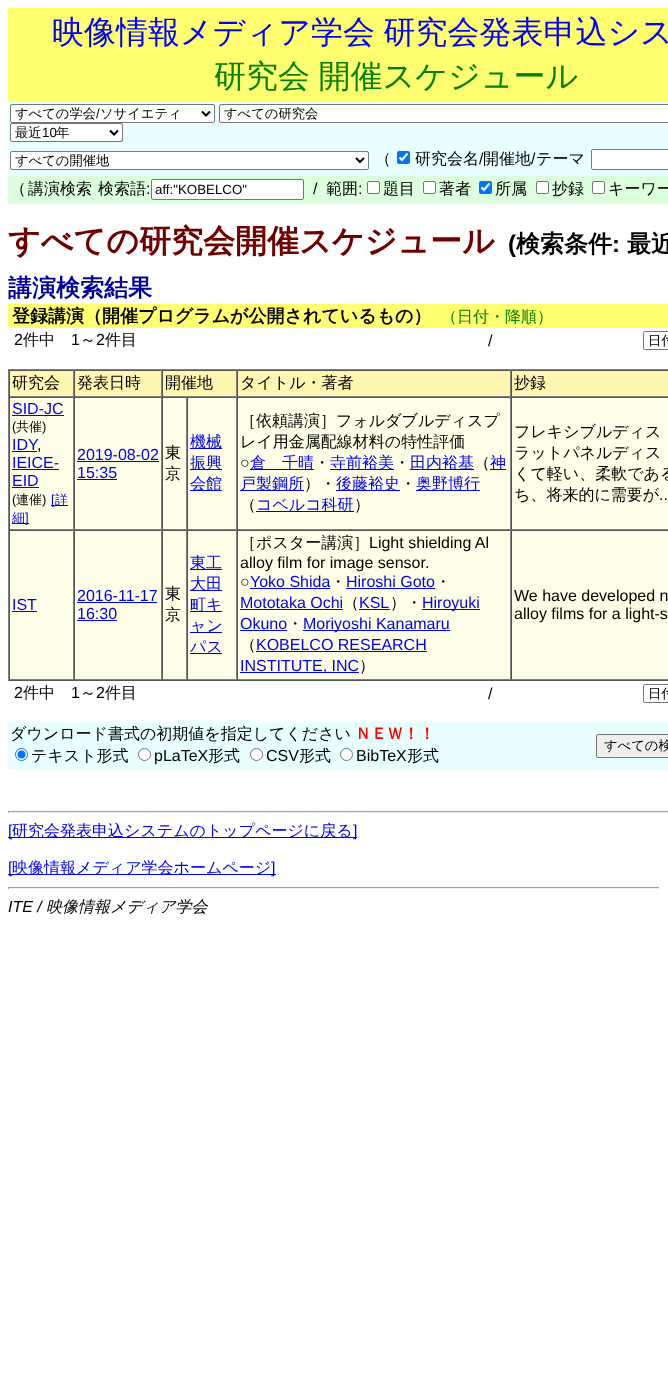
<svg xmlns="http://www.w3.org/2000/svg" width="668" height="1373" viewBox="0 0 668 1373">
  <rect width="100%" height="100%" fill="#fff"/>
  <path d="M8 8h660v94H8z" fill="#ffff6f"/>
  <path d="M8 102h660v42H8z" fill="#e9ffff"/>
  <rect x="10.5" y="104.5" width="204" height="18" rx="1.5" fill="#fff" stroke="#767676"/>
  <path d="M202 111.5L206 115.5L210 111.5" fill="none" stroke="#000" stroke-width="2"/>
  <rect x="219.5" y="104.5" width="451" height="18" rx="1.5" fill="#fff" stroke="#767676"/>
  <rect x="10.5" y="123.5" width="112" height="18" rx="1.5" fill="#fff" stroke="#767676"/>
  <path d="M110 130.5L114 134.5L118 130.5" fill="none" stroke="#000" stroke-width="2"/>
  <path d="M8 144h660v32H8z" fill="#e9ffff"/>
  <rect x="10.5" y="151.5" width="358" height="18" rx="1.5" fill="#fff" stroke="#767676"/>
  <path d="M356 158L360 162L364 158" fill="none" stroke="#000" stroke-width="2"/>
  <rect x="397" y="151" width="13" height="13" rx="2" fill="#0075ff"/>
  <path d="M399.5 157.5L402 160L407.5 153.5" fill="none" stroke="#fff" stroke-width="2.1"/>
  <rect x="591.5" y="149.5" width="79" height="20" rx="1.5" fill="#fff" stroke="#767676"/>
  <path d="M8 176h660v28H8z" fill="#deffde"/>
  <rect x="151.5" y="179.5" width="152" height="20" rx="1.5" fill="#fff" stroke="#767676"/>
  <rect x="367.5" y="181.5" width="12" height="12" rx="1.5" fill="#fff" stroke="#767676"/>
  <rect x="423.5" y="181.5" width="12" height="12" rx="1.5" fill="#fff" stroke="#767676"/>
  <rect x="479" y="181" width="13" height="13" rx="2" fill="#0075ff"/>
  <path d="M481.5 187.5L484 190L489.5 183.5" fill="none" stroke="#fff" stroke-width="2.1"/>
  <rect x="536.5" y="181.5" width="12" height="12" rx="1.5" fill="#fff" stroke="#767676"/>
  <rect x="592.5" y="181.5" width="12" height="12" rx="1.5" fill="#fff" stroke="#767676"/>
  <path d="M8 304h660v24H8z" fill="#ffff6f"/>
  <rect x="643.5" y="331.5" width="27" height="18" rx="1.5" fill="none" stroke="#767676"/>
  <path d="M8 369h660v1H8z" fill="#808080"/>
  <path d="M8 680h660v1H8z" fill="#555"/>
  <path d="M8 369h1v312H8z" fill="#808080"/>
  <path d="M10 371h63v25H10z" fill="#fff6b1"/>
  <path d="M9 370h659v1H9z" fill="#555"/>
  <path d="M73 370h1v27H73z" fill="#808080"/>
  <path d="M9 396h65v1H9z" fill="#808080"/>
  <path d="M9 370h1v27H9z" fill="#555"/>
  <path d="M75 371h86v25H75z" fill="#fff6b1"/>
  <path d="M161 370h1v27H161z" fill="#808080"/>
  <path d="M74 396h88v1H74z" fill="#808080"/>
  <path d="M74 370h1v27H74z" fill="#555"/>
  <path d="M163 371h73v25H163z" fill="#fff6b1"/>
  <path d="M236 370h1v27H236z" fill="#808080"/>
  <path d="M162 396h75v1H162z" fill="#808080"/>
  <path d="M162 370h1v27H162z" fill="#555"/>
  <path d="M238 371h272v25H238z" fill="#fff6b1"/>
  <path d="M510 370h1v27H510z" fill="#808080"/>
  <path d="M237 396h431v1H237z" fill="#808080"/>
  <path d="M237 370h1v27H237z" fill="#555"/>
  <path d="M512 371h156v25H512z" fill="#fff6b1"/>
  <path d="M511 370h1v27H511z" fill="#555"/>
  <path d="M10 398h63v131H10z" fill="#ffffe9"/>
  <path d="M9 397h659v1H9z" fill="#555"/>
  <path d="M73 397h1v133H73z" fill="#808080"/>
  <path d="M9 529h65v1H9z" fill="#808080"/>
  <path d="M9 397h1v133H9z" fill="#555"/>
  <path d="M12 415h52v1H12z" fill="#00e"/>
  <path d="M12 451h25v1H12z" fill="#00e"/>
  <path d="M12 469h47v1H12z" fill="#00e"/>
  <path d="M12 487h27v1H12z" fill="#00e"/>
  <path d="M51 505h17v1H51z" fill="#00e"/>
  <path d="M12 523h17v1H12z" fill="#00e"/>
  <path d="M75 398h86v131H75z" fill="#ffffe9"/>
  <path d="M161 397h1v133H161z" fill="#808080"/>
  <path d="M74 529h88v1H74z" fill="#808080"/>
  <path d="M74 397h1v133H74z" fill="#555"/>
  <path d="M77 461h82v1H77z" fill="#00e"/>
  <path d="M77 479h40v1H77z" fill="#00e"/>
  <path d="M163 398h23v131H163z" fill="#ffffe9"/>
  <path d="M186 397h1v133H186z" fill="#808080"/>
  <path d="M162 529h25v1H162z" fill="#808080"/>
  <path d="M162 397h1v133H162z" fill="#555"/>
  <path d="M188 398h48v131H188z" fill="#ffffe9"/>
  <path d="M236 397h1v133H236z" fill="#808080"/>
  <path d="M187 529h50v1H187z" fill="#808080"/>
  <path d="M187 397h1v133H187z" fill="#555"/>
  <path d="M190 448h32v1H190z" fill="#00e"/>
  <path d="M190 469h32v1H190z" fill="#00e"/>
  <path d="M190 490h32v1H190z" fill="#00e"/>
  <path d="M238 398h272v131H238z" fill="#ffffe9"/>
  <path d="M510 397h1v133H510z" fill="#808080"/>
  <path d="M237 529h431v1H237z" fill="#808080"/>
  <path d="M237 397h1v133H237z" fill="#555"/>
  <path d="M250 469h64v1H250z" fill="#00e"/>
  <path d="M330 469h64v1H330z" fill="#00e"/>
  <path d="M410 469h64v1H410z" fill="#00e"/>
  <path d="M490 469h16v1H490z" fill="#00e"/>
  <path d="M240 490h64v1H240z" fill="#00e"/>
  <path d="M336 490h64v1H336z" fill="#00e"/>
  <path d="M416 490h64v1H416z" fill="#00e"/>
  <path d="M256 511h98v1H256z" fill="#00e"/>
  <path d="M512 398h156v131H512z" fill="#ffffe9"/>
  <path d="M511 397h1v133H511z" fill="#555"/>
  <path d="M10 531h63v148H10z" fill="#ffffe9"/>
  <path d="M9 530h659v1H9z" fill="#555"/>
  <path d="M73 530h1v150H73z" fill="#808080"/>
  <path d="M9 679h65v1H9z" fill="#808080"/>
  <path d="M9 530h1v150H9z" fill="#555"/>
  <path d="M12 611h25v1H12z" fill="#00e"/>
  <path d="M75 531h86v148H75z" fill="#ffffe9"/>
  <path d="M161 530h1v150H161z" fill="#808080"/>
  <path d="M74 679h88v1H74z" fill="#808080"/>
  <path d="M74 530h1v150H74z" fill="#555"/>
  <path d="M77 602h80v1H77z" fill="#00e"/>
  <path d="M77 620h40v1H77z" fill="#00e"/>
  <path d="M163 531h23v148H163z" fill="#ffffe9"/>
  <path d="M186 530h1v150H186z" fill="#808080"/>
  <path d="M162 679h25v1H162z" fill="#808080"/>
  <path d="M162 530h1v150H162z" fill="#555"/>
  <path d="M188 531h48v148H188z" fill="#ffffe9"/>
  <path d="M236 530h1v150H236z" fill="#808080"/>
  <path d="M187 679h50v1H187z" fill="#808080"/>
  <path d="M187 530h1v150H187z" fill="#555"/>
  <path d="M190 569h32v1H190z" fill="#00e"/>
  <path d="M190 590h32v1H190z" fill="#00e"/>
  <path d="M190 611h32v1H190z" fill="#00e"/>
  <path d="M190 632h32v1H190z" fill="#00e"/>
  <path d="M190 653h32v1H190z" fill="#00e"/>
  <path d="M238 531h272v148H238z" fill="#ffffe9"/>
  <path d="M510 530h1v150H510z" fill="#808080"/>
  <path d="M237 679h431v1H237z" fill="#808080"/>
  <path d="M237 530h1v150H237z" fill="#555"/>
  <path d="M250 588h80v1H250z" fill="#00e"/>
  <path d="M346 588h89v1H346z" fill="#00e"/>
  <path d="M240 609h103v1H240z" fill="#00e"/>
  <path d="M359 609h31v1H359z" fill="#00e"/>
  <path d="M422 609h58v1H422z" fill="#00e"/>
  <path d="M240 630h47v1H240z" fill="#00e"/>
  <path d="M303 630h147v1H303z" fill="#00e"/>
  <path d="M256 651h171v1H256z" fill="#00e"/>
  <path d="M240 672h119v1H240z" fill="#00e"/>
  <path d="M512 531h156v148H512z" fill="#ffffe9"/>
  <path d="M511 530h1v150H511z" fill="#555"/>
  <rect x="643.5" y="684.5" width="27" height="18" rx="1.5" fill="none" stroke="#767676"/>
  <path d="M8 722h660v47H8z" fill="#e9ffff"/>
  <circle cx="21.5" cy="754.5" r="6" fill="#fff" stroke="#0075ff"/>
  <circle cx="21.5" cy="754.5" r="4" fill="#0075ff"/>
  <circle cx="144.5" cy="754.5" r="6" fill="#fff" stroke="#767676"/>
  <circle cx="256.5" cy="754.5" r="6" fill="#fff" stroke="#767676"/>
  <circle cx="346.5" cy="754.5" r="6" fill="#fff" stroke="#767676"/>
  <rect x="596.5" y="734.5" width="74" height="23" rx="1.5" fill="#efefef" stroke="#767676"/>
  <path d="M8 811h660v1H8z" fill="#9f9f9f"/>
  <path d="M8 812h660v1H8z" fill="#eee"/>
  <path d="M8 811h1v2H8z" fill="#9f9f9f"/>
  <path d="M8 837h349v1H8z" fill="#00e"/>
  <path d="M8 874h268v1H8z" fill="#00e"/>
  <path d="M8 887h652v1H8z" fill="#9f9f9f"/>
  <path d="M659 887h1v2H659z" fill="#eee"/>
  <path d="M8 888h652v1H8z" fill="#eee"/>
  <path d="M8 887h1v2H8z" fill="#9f9f9f"/>
  <text x="52" y="43" word-spacing="-1" font-family="WenQuanYi Zen Hei" font-size="32" font-weight="500" fill="#00f">映像情報メディア学会 研究会発表申込シス</text>
  <text x="214" y="87" word-spacing="-1" font-family="WenQuanYi Zen Hei" font-size="32" font-weight="500" fill="#008000">研究会 開催スケジュール</text>
  <text x="15" y="118" font-family="WenQuanYi Zen Hei" font-size="13.3" font-weight="500" fill="#000">すべての学会 ソサイエティ</text>
  <text x="96" y="118" font-family="Liberation Sans" font-size="13.3" fill="#000">/</text>
  <g font-family="WenQuanYi Zen Hei" font-size="13.3" font-weight="500" fill="#000">
    <text x="224" y="118">すべての研究会</text>
    <text x="15" y="137">最近</text>
  </g>
  <text x="42" y="137" font-family="Liberation Sans" font-size="13.3" fill="#000">10</text>
  <g font-family="WenQuanYi Zen Hei" font-size="13.3" font-weight="500" fill="#000">
    <text x="56" y="137">年</text>
    <text x="15" y="165">すべての開催地</text>
  </g>
  <g font-family="WenQuanYi Zen Hei" font-size="16" font-weight="500" fill="#000">
    <text x="375" y="164">（</text>
    <text x="415" y="164">研究会名</text>
  </g>
  <text x="479" y="164" font-family="Liberation Sans" font-size="16" fill="#000">/</text>
  <text x="483" y="164" font-family="WenQuanYi Zen Hei" font-size="16" font-weight="500" fill="#000">開催地</text>
  <text x="531" y="164" font-family="Liberation Sans" font-size="16" fill="#000">/</text>
  <g font-family="WenQuanYi Zen Hei" font-size="16" font-weight="500" fill="#000">
    <text x="536" y="164">テーマ</text>
    <text x="10" y="194">（</text>
    <text x="28" y="194">講演検索</text>
    <text x="98" y="194">検索語</text>
  </g>
  <text x="146" y="194" font-family="Liberation Sans" font-size="16" fill="#000">:</text>
  <text x="155" y="194" font-family="Liberation Sans" font-size="13.3" fill="#000">aff:"KOBELCO"</text>
  <text x="313" y="194" font-family="Liberation Sans" font-size="16" fill="#000">/</text>
  <text x="326" y="194" font-family="WenQuanYi Zen Hei" font-size="16" font-weight="500" fill="#000">範囲</text>
  <text x="358" y="194" font-family="Liberation Sans" font-size="16" fill="#000">:</text>
  <g font-family="WenQuanYi Zen Hei" font-size="16" font-weight="500" fill="#000">
    <text x="383" y="194">題目</text>
    <text x="439" y="194">著者</text>
    <text x="495" y="194">所属</text>
    <text x="552" y="194">抄録</text>
    <text x="608" y="194">キーワー</text>
  </g>
  <text x="8" y="252" font-family="WenQuanYi Zen Hei" font-size="32" font-weight="bold" fill="#700000">すべての研究会開催スケジュール</text>
  <text x="508" y="252" font-family="Liberation Sans" font-size="24" font-weight="bold" fill="#000">(</text>
  <text x="516" y="252" font-family="WenQuanYi Zen Hei" font-size="24" font-weight="bold" fill="#000">検索条件</text>
  <text x="612" y="252" font-family="Liberation Sans" font-size="24" font-weight="bold" fill="#000">:</text>
  <text x="627" y="252" font-family="WenQuanYi Zen Hei" font-size="24" font-weight="bold" fill="#000">最近</text>
  <text x="8" y="296" font-family="WenQuanYi Zen Hei" font-size="24" font-weight="bold" fill="#0000a0">講演検索結果</text>
  <text x="12" y="322" font-family="WenQuanYi Zen Hei" font-size="18" font-weight="bold" fill="#000">登録講演（開催プログラムが公開されているもの）</text>
  <text x="441" y="322" font-family="WenQuanYi Zen Hei" font-size="16" font-weight="500" fill="#008000">（日付・降順）</text>
  <text x="14" y="345" font-family="Liberation Sans" font-size="16" fill="#000">2</text>
  <text x="23" y="345" font-family="WenQuanYi Zen Hei" font-size="16" font-weight="500" fill="#000">件中</text>
  <text x="71" y="345" font-family="Liberation Sans" font-size="16" fill="#000">1</text>
  <text x="80" y="345" font-family="WenQuanYi Zen Hei" font-size="16" font-weight="500" fill="#000">～</text>
  <text x="96" y="345" font-family="Liberation Sans" font-size="16" fill="#000">2</text>
  <text x="105" y="345" font-family="WenQuanYi Zen Hei" font-size="16" font-weight="500" fill="#000">件目</text>
  <text x="488" y="346" font-family="Liberation Sans" font-size="16" fill="#000">/</text>
  <text x="648" y="345" font-family="WenQuanYi Zen Hei" font-size="13.3" font-weight="500" fill="#000">日付</text>
  <g font-family="WenQuanYi Zen Hei" font-size="16" font-weight="500" fill="#000">
    <text x="12" y="388">研究会</text>
    <text x="77" y="388">発表日時</text>
    <text x="165" y="388">開催地</text>
    <text x="240" y="388">タイトル・著者</text>
    <text x="514" y="388">抄録</text>
  </g>
  <text x="12" y="414" font-family="Liberation Sans" font-size="16" fill="#00e">SID-JC</text>
  <text x="12" y="431" font-family="Liberation Sans" font-size="13" fill="#000">(</text>
  <text x="16" y="431" font-family="WenQuanYi Zen Hei" font-size="13" font-weight="500" fill="#000">共催</text>
  <text x="42" y="431" font-family="Liberation Sans" font-size="13" fill="#000">)</text>
  <text x="12" y="450" font-family="Liberation Sans" font-size="16" fill="#00e">IDY</text>
  <text x="37" y="450" font-family="Liberation Sans" font-size="16" fill="#000">,</text>
  <g font-family="Liberation Sans" font-size="16" fill="#00e">
    <text x="12" y="468">IEICE-</text>
    <text x="12" y="486">EID</text>
  </g>
  <text x="12" y="504" font-family="Liberation Sans" font-size="13" fill="#000">(</text>
  <text x="16" y="504" font-family="WenQuanYi Zen Hei" font-size="13" font-weight="500" fill="#000">連催</text>
  <text x="42" y="504" font-family="Liberation Sans" font-size="13" fill="#000">)</text>
  <text x="51" y="504" font-family="Liberation Sans" font-size="13" fill="#00e">[</text>
  <g font-family="WenQuanYi Zen Hei" font-size="13" font-weight="500" fill="#00e">
    <text x="55" y="504">詳</text>
    <text x="12" y="522">細</text>
  </g>
  <text x="25" y="522" font-family="Liberation Sans" font-size="13" fill="#00e">]</text>
  <g font-family="Liberation Sans" font-size="16" fill="#00e">
    <text x="77" y="460">2019-08-02</text>
    <text x="77" y="478">15:35</text>
  </g>
  <g font-family="WenQuanYi Zen Hei" font-size="16" font-weight="500" fill="#000">
    <text x="165" y="458">東</text>
    <text x="165" y="479">京</text>
  </g>
  <g font-family="WenQuanYi Zen Hei" font-size="16" font-weight="500" fill="#00e">
    <text x="190" y="447">機械</text>
    <text x="190" y="468">振興</text>
    <text x="190" y="489">会館</text>
  </g>
  <g font-family="WenQuanYi Zen Hei" font-size="16" font-weight="500" fill="#000">
    <text x="240" y="426">［依頼講演］フォルダブルディスプ</text>
    <text x="240" y="447">レイ用金属配線材料の特性評価</text>
  </g>
  <text x="240" y="468" font-family="Liberation Sans" font-size="16" fill="#000">○</text>
  <text x="250" y="468" font-family="WenQuanYi Zen Hei" font-size="16" font-weight="500" fill="#00e">倉　千晴</text>
  <text x="314" y="468" font-family="WenQuanYi Zen Hei" font-size="16" font-weight="500" fill="#000">・</text>
  <text x="330" y="468" font-family="WenQuanYi Zen Hei" font-size="16" font-weight="500" fill="#00e">寺前裕美</text>
  <text x="394" y="468" font-family="WenQuanYi Zen Hei" font-size="16" font-weight="500" fill="#000">・</text>
  <text x="410" y="468" font-family="WenQuanYi Zen Hei" font-size="16" font-weight="500" fill="#00e">田内裕基</text>
  <text x="474" y="468" font-family="WenQuanYi Zen Hei" font-size="16" font-weight="500" fill="#000">（</text>
  <g font-family="WenQuanYi Zen Hei" font-size="16" font-weight="500" fill="#00e">
    <text x="490" y="468">神</text>
    <text x="240" y="489">戸製鋼所</text>
  </g>
  <text x="304" y="489" font-family="WenQuanYi Zen Hei" font-size="16" font-weight="500" fill="#000">）・</text>
  <text x="336" y="489" font-family="WenQuanYi Zen Hei" font-size="16" font-weight="500" fill="#00e">後藤裕史</text>
  <text x="400" y="489" font-family="WenQuanYi Zen Hei" font-size="16" font-weight="500" fill="#000">・</text>
  <text x="416" y="489" font-family="WenQuanYi Zen Hei" font-size="16" font-weight="500" fill="#00e">奥野博行</text>
  <text x="240" y="510" font-family="WenQuanYi Zen Hei" font-size="16" font-weight="500" fill="#000">（</text>
  <text x="256" y="510" font-family="WenQuanYi Zen Hei" font-size="16" font-weight="500" fill="#00e">コベルコ科研</text>
  <g font-family="WenQuanYi Zen Hei" font-size="16" font-weight="500" fill="#000">
    <text x="354" y="510">）</text>
    <text x="514" y="437">フレキシブルディス</text>
    <text x="514" y="458">ラットパネルディス</text>
    <text x="514" y="479">くて軽い、柔軟である</text>
    <text x="514" y="500">ち、将来的に需要が</text>
  </g>
  <text x="659" y="500" font-family="Liberation Sans" font-size="16" fill="#000">..</text>
  <g font-family="Liberation Sans" font-size="16" fill="#00e">
    <text x="12" y="610">IST</text>
    <text x="77" y="601">2016-11-17</text>
    <text x="77" y="619">16:30</text>
  </g>
  <g font-family="WenQuanYi Zen Hei" font-size="16" font-weight="500" fill="#000">
    <text x="165" y="599">東</text>
    <text x="165" y="620">京</text>
  </g>
  <g font-family="WenQuanYi Zen Hei" font-size="16" font-weight="500" fill="#00e">
    <text x="190" y="568">東工</text>
    <text x="190" y="589">大田</text>
    <text x="190" y="610">町キ</text>
    <text x="190" y="631">ャン</text>
    <text x="190" y="652">パス</text>
  </g>
  <text x="240" y="548" font-family="WenQuanYi Zen Hei" font-size="16" font-weight="500" fill="#000">［ポスター講演］</text>
  <g font-family="Liberation Sans" font-size="16" fill="#000">
    <text x="369" y="548">Light shielding Al</text>
    <text x="240" y="568">alloy film for image sensor.</text>
    <text x="240" y="587">○</text>
  </g>
  <text x="250" y="587" font-family="Liberation Sans" font-size="16" fill="#00e">Yoko Shida</text>
  <text x="330" y="587" font-family="WenQuanYi Zen Hei" font-size="16" font-weight="500" fill="#000">・</text>
  <text x="346" y="587" font-family="Liberation Sans" font-size="16" fill="#00e">Hiroshi Goto</text>
  <text x="435" y="587" font-family="WenQuanYi Zen Hei" font-size="16" font-weight="500" fill="#000">・</text>
  <text x="240" y="608" font-family="Liberation Sans" font-size="16" fill="#00e">Mototaka Ochi</text>
  <text x="343" y="608" font-family="WenQuanYi Zen Hei" font-size="16" font-weight="500" fill="#000">（</text>
  <text x="359" y="608" font-family="Liberation Sans" font-size="16" fill="#00e">KSL</text>
  <text x="390" y="608" font-family="WenQuanYi Zen Hei" font-size="16" font-weight="500" fill="#000">）・</text>
  <g font-family="Liberation Sans" font-size="16" fill="#00e">
    <text x="422" y="608">Hiroyuki</text>
    <text x="240" y="629">Okuno</text>
  </g>
  <text x="287" y="629" font-family="WenQuanYi Zen Hei" font-size="16" font-weight="500" fill="#000">・</text>
  <text x="303" y="629" font-family="Liberation Sans" font-size="16" fill="#00e">Moriyoshi Kanamaru</text>
  <text x="240" y="650" font-family="WenQuanYi Zen Hei" font-size="16" font-weight="500" fill="#000">（</text>
  <g font-family="Liberation Sans" font-size="16" fill="#00e">
    <text x="256" y="650">KOBELCO RESEARCH</text>
    <text x="240" y="671">INSTITUTE, INC</text>
  </g>
  <text x="359" y="671" font-family="WenQuanYi Zen Hei" font-size="16" font-weight="500" fill="#000">）</text>
  <g font-family="Liberation Sans" font-size="16" fill="#000">
    <text x="514" y="601">We have developed n</text>
    <text x="514" y="619">alloy films for a light-s</text>
    <text x="14" y="698">2</text>
  </g>
  <text x="23" y="698" font-family="WenQuanYi Zen Hei" font-size="16" font-weight="500" fill="#000">件中</text>
  <text x="71" y="698" font-family="Liberation Sans" font-size="16" fill="#000">1</text>
  <text x="80" y="698" font-family="WenQuanYi Zen Hei" font-size="16" font-weight="500" fill="#000">～</text>
  <text x="96" y="698" font-family="Liberation Sans" font-size="16" fill="#000">2</text>
  <text x="105" y="698" font-family="WenQuanYi Zen Hei" font-size="16" font-weight="500" fill="#000">件目</text>
  <text x="488" y="699" font-family="Liberation Sans" font-size="16" fill="#000">/</text>
  <text x="648" y="698" font-family="WenQuanYi Zen Hei" font-size="13.3" font-weight="500" fill="#000">日付</text>
  <text x="10" y="739" font-family="WenQuanYi Zen Hei" font-size="16" font-weight="500" fill="#000">ダウンロード書式の初期値を指定してください</text>
  <text x="355" y="739" font-family="WenQuanYi Zen Hei" font-size="16" font-weight="bold" fill="#f00">ＮＥＷ！！</text>
  <text x="31" y="761" font-family="WenQuanYi Zen Hei" font-size="16" font-weight="500" fill="#000">テキスト形式</text>
  <text x="154" y="761" font-family="Liberation Sans" font-size="16" fill="#000">pLaTeX</text>
  <text x="208" y="761" font-family="WenQuanYi Zen Hei" font-size="16" font-weight="500" fill="#000">形式</text>
  <text x="266" y="761" font-family="Liberation Sans" font-size="16" fill="#000">CSV</text>
  <text x="299" y="761" font-family="WenQuanYi Zen Hei" font-size="16" font-weight="500" fill="#000">形式</text>
  <text x="356" y="761" font-family="Liberation Sans" font-size="16" fill="#000">BibTeX</text>
  <text x="407" y="761" font-family="WenQuanYi Zen Hei" font-size="16" font-weight="500" fill="#000">形式</text>
  <text x="604" y="750" font-family="WenQuanYi Zen Hei" font-size="13.3" font-weight="500" fill="#000">すべての検</text>
  <text x="8" y="836" font-family="Liberation Sans" font-size="16" fill="#00e">[</text>
  <text x="12" y="836" font-family="WenQuanYi Zen Hei" font-size="16" font-weight="500" fill="#00e">研究会発表申込システムのトップページに戻る</text>
  <g font-family="Liberation Sans" font-size="16" fill="#00e">
    <text x="353" y="836">]</text>
    <text x="8" y="873">[</text>
  </g>
  <text x="12" y="873" font-family="WenQuanYi Zen Hei" font-size="16" font-weight="500" fill="#00e">映像情報メディア学会ホームページ</text>
  <text x="271" y="873" font-family="Liberation Sans" font-size="16" fill="#00e">]</text>
  <text x="8" y="912" font-family="Liberation Sans" font-size="16" font-style="italic" fill="#000">ITE /</text>
  <text x="46" y="912" font-family="WenQuanYi Zen Hei" font-size="16" font-weight="500" font-style="italic" fill="#000">映像情報メディア学会</text>
</svg>
